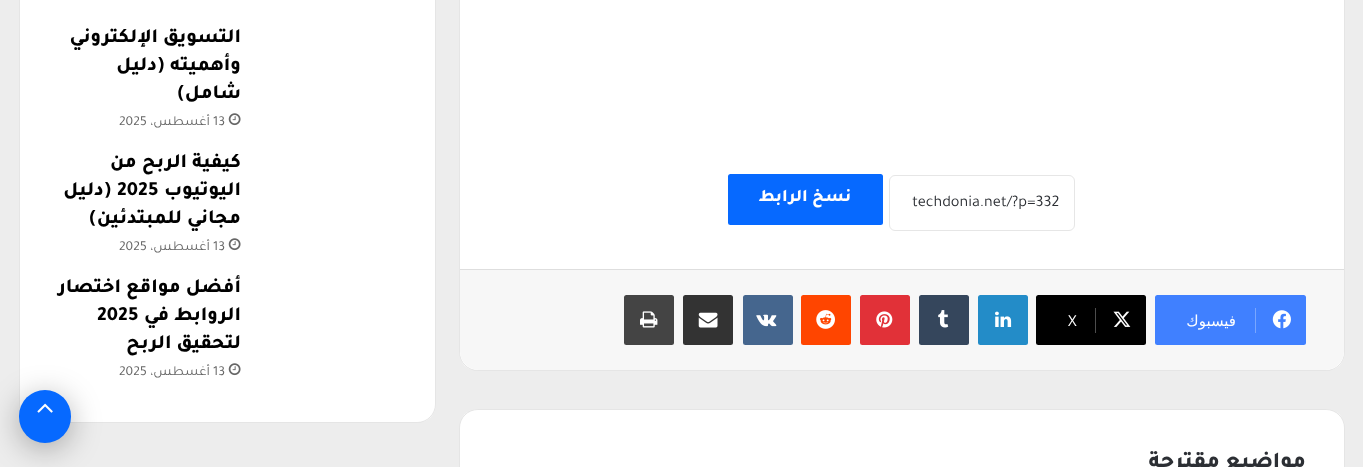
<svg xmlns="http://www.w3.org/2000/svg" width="1363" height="467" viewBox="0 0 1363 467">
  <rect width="100%" height="100%" fill="#ededed"/>
  <rect x="459" y="-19" width="886" height="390" rx="19" fill="#fff"/>
  <rect x="459.5" y="-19.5" width="885" height="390" rx="18.5" fill="none" stroke="#0000001a"/>
  <rect x="889.5" y="175.5" width="185" height="55" rx="5.5" fill="none" stroke="#e6e6e6"/>
  <rect x="728" y="174" width="155" height="51" rx="2.5" fill="#0669ff"/>
  <path d="M460 269H1344V351C1344 361.5 1335.5 370 1325 370H479C468.5 370 460 361.5 460 351Z" fill="#f7f7f7"/>
  <path d="M460 269h884v1H460z" fill="#dedede"/>
  <rect x="1155" y="295" width="151" height="50" rx="2.5" fill="#4080ff"/>
  <image x="1272" y="310" width="19" height="19" href="img/1.png"/>
  <path d="M1255 308h1v25H1255z" fill="#79a6ff"/>
  <rect x="1036" y="295" width="110" height="50" rx="2.5" fill="#000"/>
  <image x="1113" y="311" width="18" height="16" href="img/2.png"/>
  <path d="M1095 308h1v25H1095z" fill="#4d4d4d"/>
  <rect x="978" y="295" width="50" height="50" rx="2.5" fill="#238cc8"/>
  <image x="995" y="311" width="17" height="16" href="img/3.png"/>
  <rect x="919" y="295" width="50" height="50" rx="2.5" fill="#35465c"/>
  <image x="938" y="310" width="11" height="18" href="img/4.png"/>
  <rect x="860" y="295" width="50" height="50" rx="2.5" fill="#e13138"/>
  <image x="876" y="311" width="17" height="17" href="img/5.png"/>
  <rect x="801" y="295" width="50" height="50" rx="2.5" fill="#ff4500"/>
  <image x="816" y="310" width="19" height="19" href="img/6.png"/>
  <rect x="743" y="295" width="50" height="50" rx="2.5" fill="#45668e"/>
  <image x="756" y="314" width="21" height="13" href="img/7.png"/>
  <rect x="683" y="295" width="50" height="50" rx="2.5" fill="#333"/>
  <image x="698" y="312" width="20" height="16" href="img/8.png"/>
  <rect x="624" y="295" width="50" height="50" rx="2.5" fill="#444"/>
  <image x="640" y="311" width="18" height="17" href="img/9.png"/>
  <rect x="459" y="409" width="886" height="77" rx="19" fill="#fff"/>
  <rect x="459.5" y="409.5" width="885" height="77" rx="18.5" fill="none" stroke="#0000001a"/>
  <rect x="19" y="-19" width="417" height="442" rx="19" fill="#fff"/>
  <rect x="19.5" y="-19.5" width="416" height="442" rx="18.5" fill="none" stroke="#0000001a"/>
  <image x="228" y="113" width="13" height="13" href="img/10.png"/>
  <image x="228" y="238" width="13" height="13" href="img/10.png"/>
  <image x="228" y="363" width="13" height="13" href="img/10.png"/>
  <rect x="19" y="396" width="52" height="53" rx="26" fill="#0000004d" filter="blur(15.5px)"/>
  <rect x="19" y="390" width="52" height="53" rx="26" fill="#0669ff"/>
  <image x="37" y="403" width="16" height="10" href="img/11.png"/>
  <text x="912" y="206" font-family="Tajawal" font-size="16.25" fill="#2c2f34">techdonia.net/?p=332</text>
  <text x="851" y="201" font-family="Tajawal" font-size="17.5" font-weight="800" direction="rtl" fill="#fff">نسخ الرابط</text>
  <text x="1236" y="326" font-family="DejaVu Sans" font-size="15" direction="rtl" fill="#fff">فيسبوك</text>
  <text x="1068" y="326" font-family="Open Sans" font-size="15" fill="#fff">X</text>
  <text x="1306" y="467" font-family="Tajawal" font-size="22.5" font-weight="800" direction="rtl" fill="#2c2f34">مواضيع مقترحة</text>
  <g font-family="Tajawal" font-size="20" font-weight="800" direction="rtl" fill="#000">
    <text x="241" y="42">التسويق الإلكتروني</text>
    <text x="241" y="70">وأهميته (دليل</text>
    <text x="241" y="98">شامل)</text>
  </g>
  <text x="213" y="125" font-family="Tajawal" font-size="13.75" fill="#666">13</text>
  <text x="210" y="125" font-family="Tajawal" font-size="13.75" direction="rtl" fill="#666">أغسطس،</text>
  <text x="119" y="125" font-family="Tajawal" font-size="13.75" fill="#666">2025</text>
  <g font-family="Tajawal" font-size="20" font-weight="800" direction="rtl" fill="#000">
    <text x="241" y="167">كيفية الربح من</text>
    <text x="241" y="195">اليوتيوب</text>
  </g>
  <text x="117" y="195" font-family="Tajawal" font-size="20" font-weight="800" fill="#000">2025</text>
  <g font-family="Tajawal" font-size="20" font-weight="800" direction="rtl" fill="#000">
    <text x="112" y="195">(دليل</text>
    <text x="241" y="223">مجاني للمبتدئين)</text>
  </g>
  <text x="213" y="250" font-family="Tajawal" font-size="13.75" fill="#666">13</text>
  <text x="210" y="250" font-family="Tajawal" font-size="13.75" direction="rtl" fill="#666">أغسطس،</text>
  <text x="119" y="250" font-family="Tajawal" font-size="13.75" fill="#666">2025</text>
  <g font-family="Tajawal" font-size="20" font-weight="800" direction="rtl" fill="#000">
    <text x="241" y="292">أفضل مواقع اختصار</text>
    <text x="241" y="320">الروابط في</text>
  </g>
  <text x="97" y="320" font-family="Tajawal" font-size="20" font-weight="800" fill="#000">2025</text>
  <text x="241" y="348" font-family="Tajawal" font-size="20" font-weight="800" direction="rtl" fill="#000">لتحقيق الربح</text>
  <text x="213" y="375" font-family="Tajawal" font-size="13.75" fill="#666">13</text>
  <text x="210" y="375" font-family="Tajawal" font-size="13.75" direction="rtl" fill="#666">أغسطس،</text>
  <text x="119" y="375" font-family="Tajawal" font-size="13.75" fill="#666">2025</text>
</svg>
